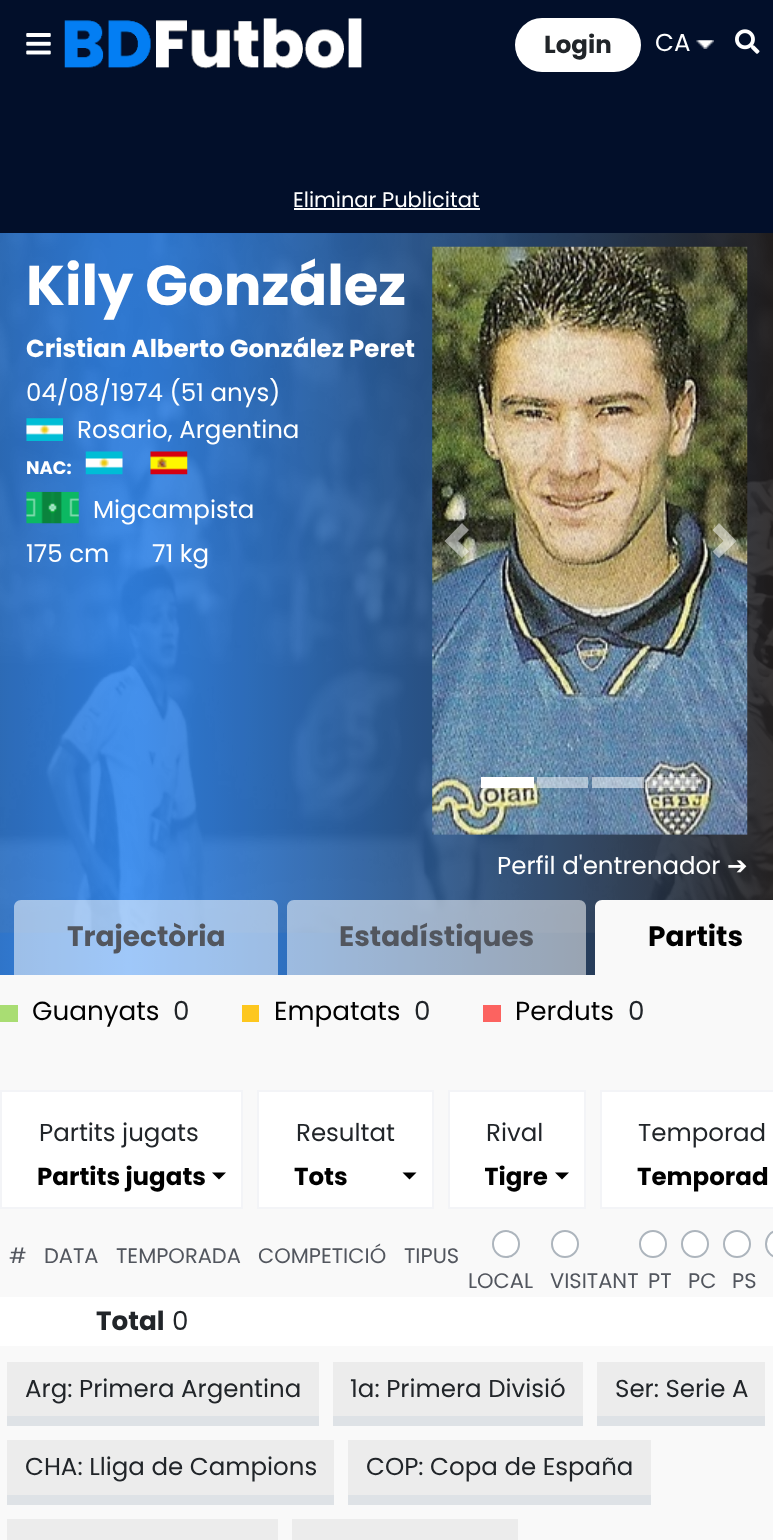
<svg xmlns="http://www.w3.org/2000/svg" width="773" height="1540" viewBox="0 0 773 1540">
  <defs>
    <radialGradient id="g1" gradientUnits="userSpaceOnUse" cx="0" cy="0" r="1" gradientTransform="matrix(646 0 0 10021 128 975)"><stop offset="0" stop-color="#0052b4"/><stop offset="0" stop-color="#338af3"/><stop offset="1" stop-color="#221f1f"/></radialGradient>
    <clipPath id="clip1"><path d="M485 1159h63v36H485z"/></clipPath>
  </defs>
  <rect width="100%" height="100%" fill="#f9f9f9"/>
  <path d="M0 0h773v233H0z" fill="#020f2a"/>
  <image x="26" y="33" width="25" height="22" href="img/1.png"/>
  <image x="64" y="18" width="298" height="51" href="img/2.png"/>
  <rect x="515" y="18" width="126" height="54" rx="27" fill="#fff"/>
  <image x="696" y="40" width="18" height="9" href="img/3.png"/>
  <image x="735" y="29" width="25" height="25" href="img/4.png"/>
  <path d="M294 208h186v2H294z" fill="#fff"/>
  <path d="M0 233h773v742H0z" fill="url(#g1)"/>
  <image x="0" y="233" width="773" height="700" href="img/5.png"/>
  <image x="26" y="418" width="37" height="23" href="img/6.png"/>
  <image x="85" y="451" width="38" height="24" href="img/7.png"/>
  <image x="150" y="451" width="38" height="24" href="img/8.png"/>
  <image x="26" y="491" width="53" height="33" href="img/9.png"/>
  <image x="432" y="246" width="316" height="589" href="img/10.png"/>
  <path d="M462 523L444.5 541L462 558L469 551.5L458 541L469 530Z" fill="#ffffff80"/>
  <path d="M719 523L712.5 530L723.5 541L712.5 551.5L719 558L736.5 541Z" fill="#ffffff80"/>
  <path d="M481 777h53v11H481z" fill="#fff"/>
  <path d="M537 777h51v11H537z" fill="#ffffff80"/>
  <path d="M592 777h52v11H592z" fill="#ffffff80"/>
  <path d="M648 777h50v11H648z" fill="#ffffff80"/>
  <path d="M21 900H271C275 900 278 903 278 907V975H14V907C14 903 17 900 21 900Z" fill="#ffffff87"/>
  <path d="M294 900H579C583 900 586 903 586 907V975H287V907C287 903 290 900 294 900Z" fill="#ffffff87"/>
  <path d="M602 900H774V975H595V907C595 903 598 900 602 900Z" fill="#f9f9f9"/>
  <path d="M0 1005h18v17H0z" fill="#a9dd73"/>
  <path d="M242 1005h17v17H242z" fill="#fdc71f"/>
  <path d="M483 1005h18v17H483z" fill="#fc6360"/>
  <path d="M1 1091h241v117H1z" fill="#fff" stroke="#f3f4f7" stroke-width="2"/>
  <path d="M212 1172.5H226L219 1179.5Z" fill="#000"/>
  <path d="M258 1091h175v117H258z" fill="#fff" stroke="#f3f4f7" stroke-width="2"/>
  <path d="M402.5 1172.5H416.5L409.5 1179.5Z" fill="#000"/>
  <path d="M449 1091h136v117H449z" fill="#fff" stroke="#f3f4f7" stroke-width="2"/>
  <path d="M555 1172.5H569L562 1179.5Z" fill="#000"/>
  <path d="M601 1091h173v117H601z" fill="#fff" stroke="#f3f4f7" stroke-width="2"/>
  <path d="M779 1230H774V1258H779C771.5 1258 765 1251.5 765 1244C765 1236.5 771.5 1230 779 1230Z" fill="#fff"/>
  <rect x="766" y="1231" width="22" height="26" rx="13" fill="none" stroke="#adb5bd" stroke-width="2"/>
  <circle cx="506" cy="1244" r="13" fill="#fff" stroke="#adb5bd" stroke-width="2"/>
  <circle cx="565" cy="1244" r="13" fill="#fff" stroke="#adb5bd" stroke-width="2"/>
  <circle cx="653" cy="1244" r="13" fill="#fff" stroke="#adb5bd" stroke-width="2"/>
  <circle cx="695" cy="1244" r="13" fill="#fff" stroke="#adb5bd" stroke-width="2"/>
  <circle cx="737" cy="1244" r="13" fill="#fff" stroke="#adb5bd" stroke-width="2"/>
  <path d="M0 1297h773v49H0z" fill="#fff"/>
  <path d="M7 1362h312v54H7z" fill="#ececec"/>
  <path d="M7 1416h312v10H7z" fill="#dee2e6"/>
  <path d="M333 1362h250v54H333z" fill="#ececec"/>
  <path d="M333 1416h250v10H333z" fill="#dee2e6"/>
  <path d="M597 1362h168v54H597z" fill="#ececec"/>
  <path d="M597 1416h168v10H597z" fill="#dee2e6"/>
  <path d="M7 1440h327v55H7z" fill="#ececec"/>
  <path d="M7 1495h327v10H7z" fill="#dee2e6"/>
  <path d="M348 1440h303v55H348z" fill="#ececec"/>
  <path d="M348 1495h303v10H348z" fill="#dee2e6"/>
  <path d="M7 1519h271v21H7z" fill="#ececec"/>
  <path d="M292 1519h226v21H292z" fill="#ececec"/>
  <text x="544" y="53" font-family="Poppins" font-size="24.5" font-weight="bold" fill="#212529">Login</text>
  <text x="655" y="51" font-family="Poppins" font-size="24.5" fill="#fff">CA</text>
  <text x="293" y="207" font-family="Poppins" font-size="21" fill="#fff">Eliminar Publicitat</text>
  <text x="26" y="305" font-family="Poppins" font-size="56" font-weight="bold" fill="#fff">Kily González</text>
  <text x="26" y="357" font-family="Poppins" font-size="24.5" font-weight="bold" fill="#fff">Cristian Alberto González Peret</text>
  <g font-family="Poppins" font-size="24.5" fill="#fff">
    <text x="26" y="401">04/08/1974 (51 anys)</text>
    <text x="77" y="438">Rosario, Argentina</text>
  </g>
  <text x="26" y="474" font-family="Poppins" font-size="18" font-weight="bold" fill="#fff">NAC:</text>
  <g font-family="Poppins" font-size="24.5" fill="#fff">
    <text x="93" y="518">Migcampista</text>
    <text x="26" y="562">175 cm</text>
    <text x="152" y="562">71 kg</text>
    <text x="497" y="874">Perfil d'entrenador</text>
  </g>
  <text x="727" y="874" font-family="DejaVu Sans" font-size="24.5" fill="#fff">➔</text>
  <g font-family="Poppins" font-size="28" font-weight="bold" fill="#52565e">
    <text x="67" y="946">Trajectòria</text>
    <text x="339" y="946">Estadístiques</text>
  </g>
  <text x="648" y="946" font-family="Poppins" font-size="28" font-weight="bold" fill="#000">Partits</text>
  <text x="32" y="1020" font-family="Poppins" font-size="26.25" fill="#000">Guanyats</text>
  <text x="173" y="1020" font-family="Poppins" font-size="26.25" fill="#212529">0</text>
  <text x="274" y="1020" font-family="Poppins" font-size="26.25" fill="#000">Empatats</text>
  <text x="414" y="1020" font-family="Poppins" font-size="26.25" fill="#212529">0</text>
  <text x="515" y="1020" font-family="Poppins" font-size="26.25" fill="#000">Perduts</text>
  <text x="628" y="1020" font-family="Poppins" font-size="26.25" fill="#212529">0</text>
  <text x="39" y="1141" font-family="Poppins" font-size="24.5" fill="#212529">Partits jugats</text>
  <text x="37" y="1185" font-family="Poppins" font-size="24.5" font-weight="bold" fill="#000">Partits jugats</text>
  <text x="296" y="1141" font-family="Poppins" font-size="24.5" fill="#212529">Resultat</text>
  <text x="294" y="1185" font-family="Poppins" font-size="24.5" font-weight="bold" fill="#000">Tots</text>
  <text x="486" y="1141" font-family="Poppins" font-size="24.5" fill="#212529">Rival</text>
  <g clip-path="url(#clip1)">
    <text x="484" y="1185" font-family="Poppins" font-size="24.5" font-weight="bold" fill="#000">Tigre</text>
  </g>
  <text x="638" y="1141" font-family="Poppins" font-size="24.5" fill="#212529">Temporad</text>
  <text x="637" y="1185" font-family="Poppins" font-size="24.5" font-weight="bold" fill="#000">Temporad</text>
  <g font-family="Poppins" font-size="21" fill="#52565e">
    <text x="9" y="1263">#</text>
    <text x="44" y="1263">DATA</text>
    <text x="116" y="1263">TEMPORADA</text>
    <text x="258" y="1263">COMPETICIÓ</text>
    <text x="404" y="1263">TIPUS</text>
    <text x="468" y="1288">LOCAL</text>
    <text x="550" y="1288">VISITANT</text>
    <text x="648" y="1288">PT</text>
    <text x="688" y="1288">PC</text>
    <text x="732" y="1288">PS</text>
  </g>
  <text x="96" y="1330" font-family="Poppins" font-size="26.25" font-weight="bold" fill="#212529">Total</text>
  <text x="172" y="1330" font-family="Poppins" font-size="26.25" fill="#212529">0</text>
  <g font-family="Poppins" font-size="24.5" fill="#212529">
    <text x="25" y="1397">Arg: Primera Argentina</text>
    <text x="350" y="1397">1a: Primera Divisió</text>
    <text x="615" y="1397">Ser: Serie A</text>
    <text x="25" y="1475">CHA: Lliga de Campions</text>
    <text x="366" y="1475">COP: Copa de España</text>
  </g>
</svg>
